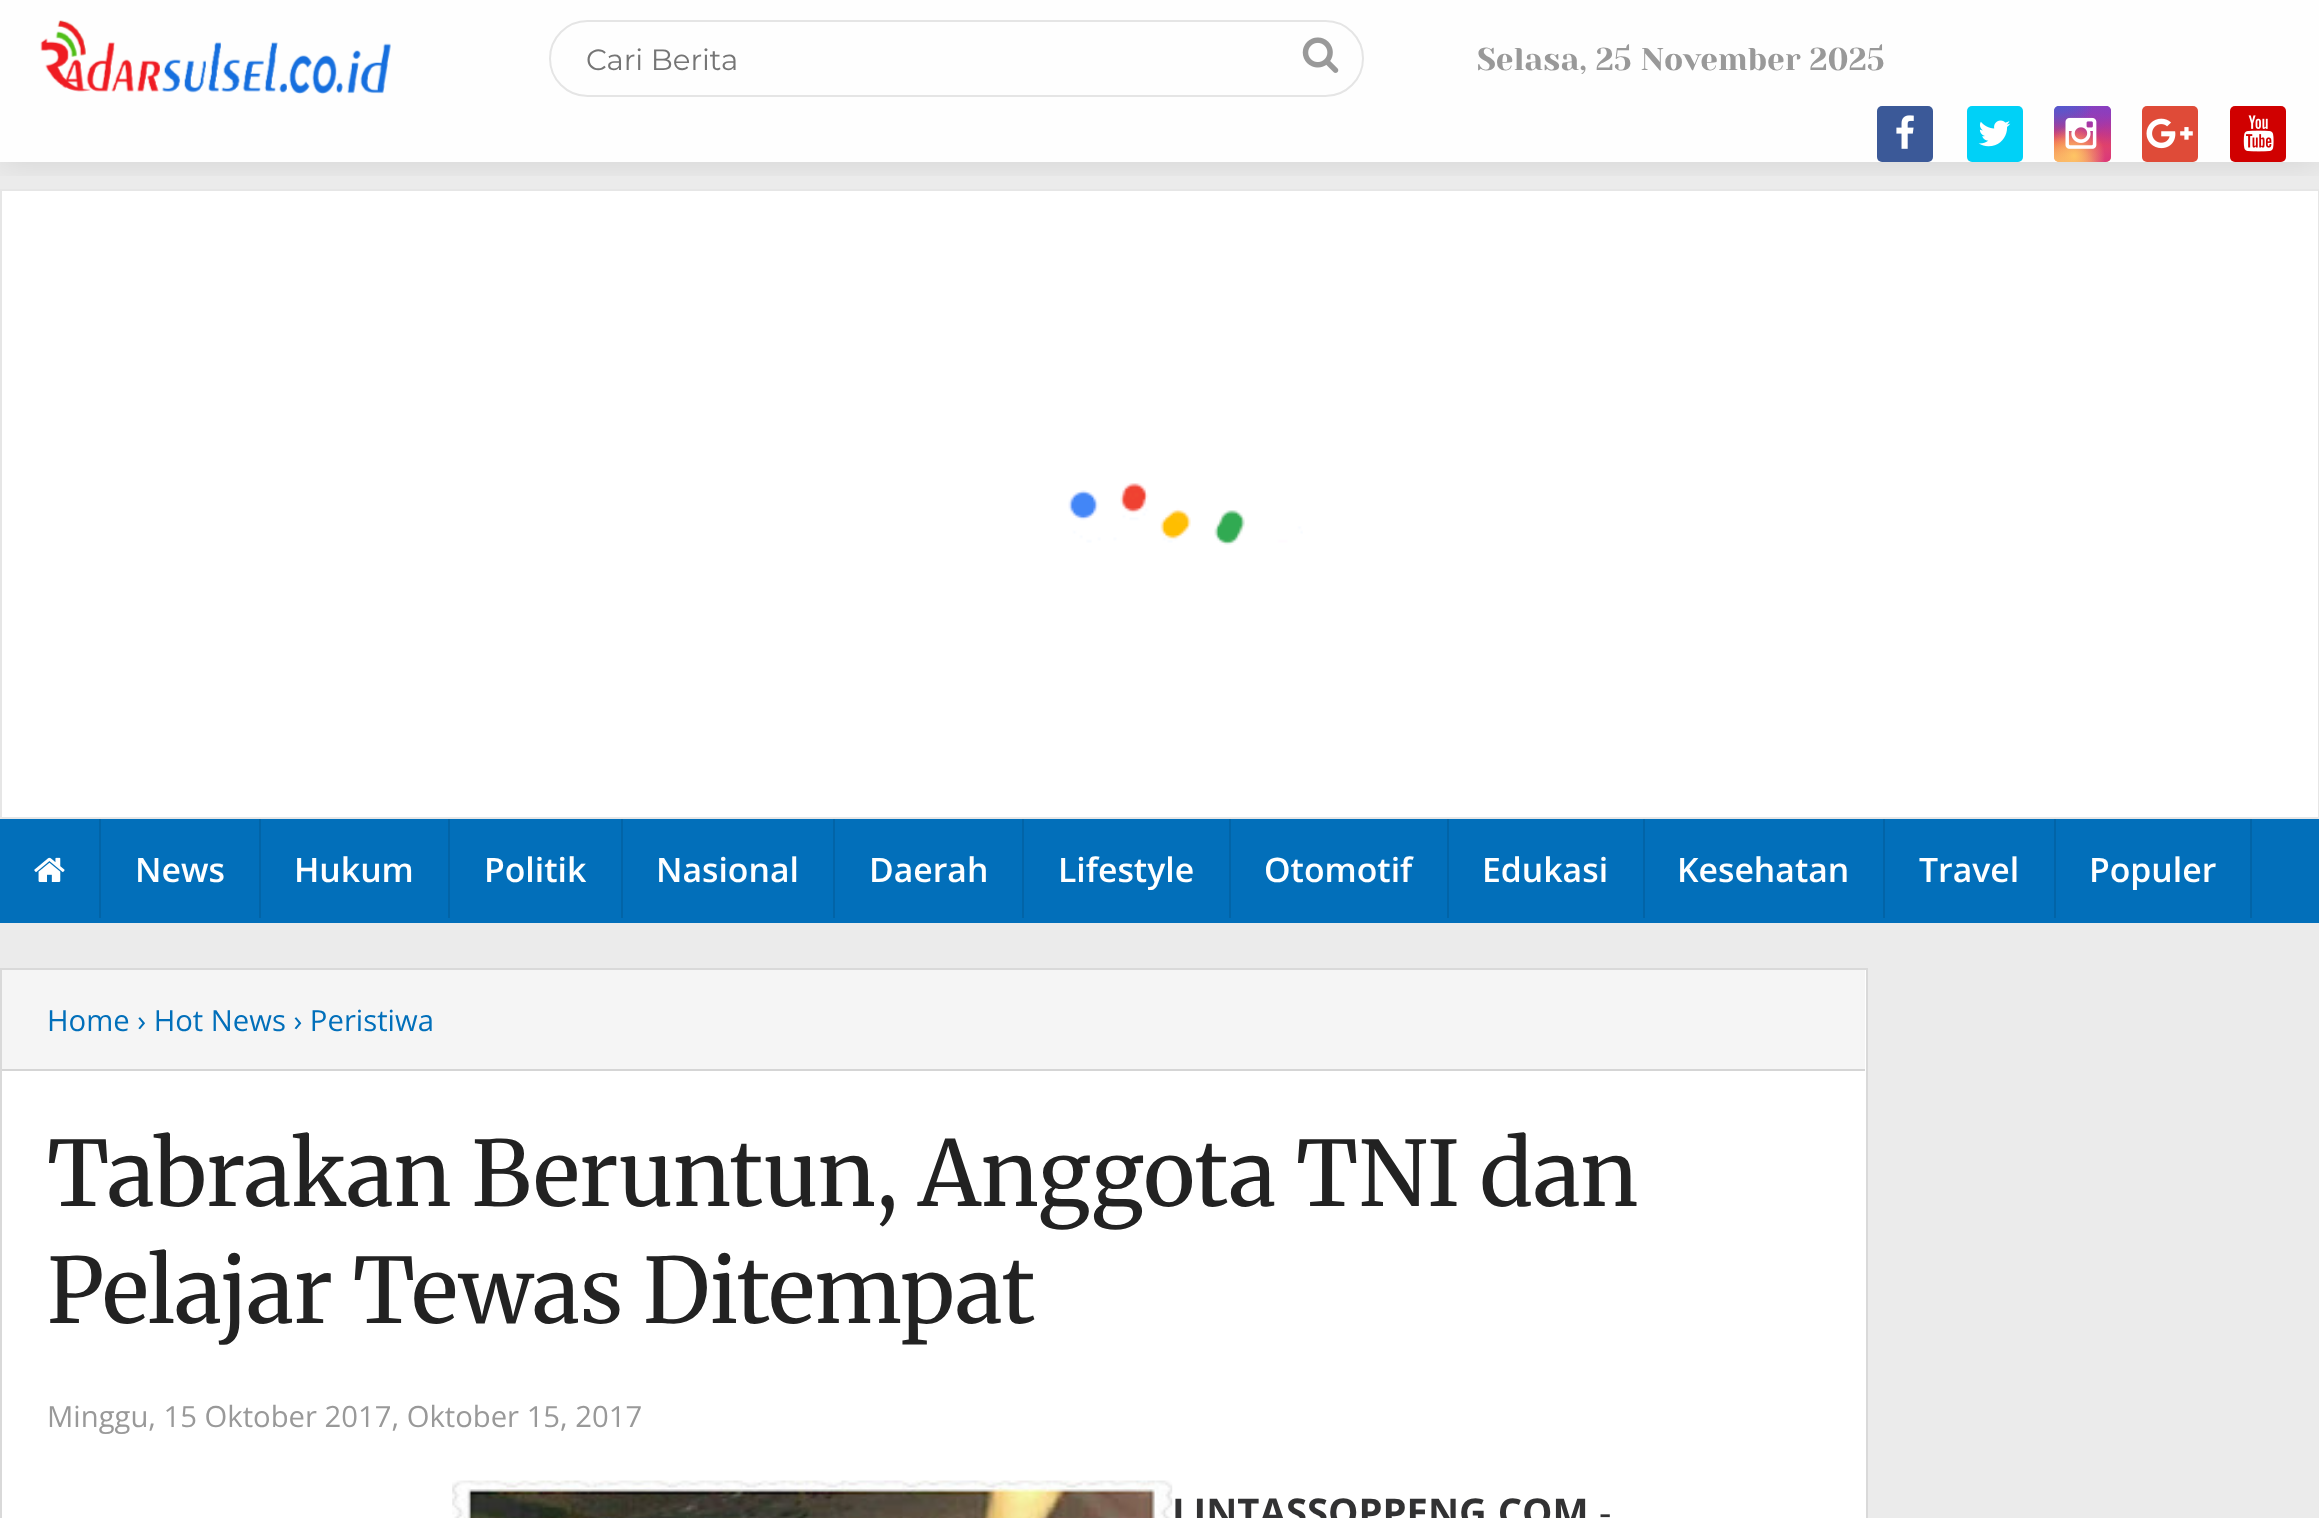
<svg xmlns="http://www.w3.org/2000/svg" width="2319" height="1518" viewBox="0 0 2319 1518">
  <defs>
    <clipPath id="clip1"><path d="M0 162h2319v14H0z"/></clipPath>
    <linearGradient id="g1" gradientUnits="userSpaceOnUse" x1="2082" y1="106" x2="2082" y2="162"><stop offset="0" stop-color="#6559ca"/><stop offset="0.3" stop-color="#bc318f"/><stop offset="0.5" stop-color="#e33f5f"/><stop offset="0.7" stop-color="#f77638"/><stop offset="1" stop-color="#fec66d"/></linearGradient>
    <radialGradient id="g2" gradientUnits="userSpaceOnUse" cx="2111" cy="162" r="80"><stop offset="0" stop-color="#d9317a"/><stop offset="1" stop-color="#d9317a" stop-opacity="0"/></radialGradient>
    <radialGradient id="g3" gradientUnits="userSpaceOnUse" cx="0" cy="0" r="1" gradientTransform="matrix(48 0 0 95 2088 95)"><stop offset="0" stop-color="#893dc2"/><stop offset="0.5" stop-color="#893dc2" stop-opacity="0"/></radialGradient>
    <radialGradient id="g4" gradientUnits="userSpaceOnUse" cx="2111" cy="106" r="80"><stop offset="0" stop-color="#893dc2"/><stop offset="0.5" stop-color="#893dc2" stop-opacity="0"/></radialGradient>
    <radialGradient id="g5" gradientUnits="userSpaceOnUse" cx="0" cy="0" r="1" gradientTransform="matrix(64 0 0 119 2066 78)"><stop offset="0" stop-color="#5258cf"/><stop offset="0.5" stop-color="#5258cf" stop-opacity="0"/></radialGradient>
    <radialGradient id="g6" gradientUnits="userSpaceOnUse" cx="0" cy="0" r="1" gradientTransform="matrix(80 0 0 99 2054 92)"><stop offset="0" stop-color="#5258cf"/><stop offset="0.5" stop-color="#5258cf" stop-opacity="0"/></radialGradient>
    <radialGradient id="g7" gradientUnits="userSpaceOnUse" cx="2054" cy="185" r="97"><stop offset="0" stop-color="#fec564"/><stop offset="0.5" stop-color="#fec564" stop-opacity="0"/></radialGradient>
    <radialGradient id="g8" gradientUnits="userSpaceOnUse" cx="2074" cy="156" r="62"><stop offset="0" stop-color="#fec564"/><stop offset="0.5" stop-color="#fec564" stop-opacity="0"/></radialGradient>
    <clipPath id="clip2"><path d="M2 970h1863v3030H2z"/></clipPath>
  </defs>
  <rect width="100%" height="100%" fill="#ebebeb"/>
  <path d="M0 0h2319v162H0z" fill="#fefefe"/>
  <path d="M2 191h2316v626H2z" fill="#fff"/>
  <image x="1068" y="483" width="235" height="62" href="img/8.png"/>
  <path d="M1 190h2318v628H1z" fill="none" stroke="#e6e6e6" stroke-width="2"/>
  <g clip-path="url(#clip1)">
    <path d="M0 0h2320v162H0z" fill="#0000001a" filter="blur(17px)"/>
  </g>
  <image x="40" y="20" width="351" height="74" href="img/1.png"/>
  <rect x="550" y="21" width="813" height="75" rx="37.5" fill="none" stroke="#e5e5e5" stroke-width="2"/>
  <image x="1302" y="37" width="37" height="36" href="img/2.png"/>
  <rect x="1877" y="106" width="56" height="56" rx="5" fill="#3b5998"/>
  <image x="1896" y="115" width="18" height="34" href="img/3.png"/>
  <rect x="1967" y="106" width="56" height="56" rx="5" fill="#00d1f7"/>
  <image x="1978" y="120" width="33" height="27" href="img/4.png"/>
  <rect x="2054" y="106" width="57" height="56" rx="5" fill="url(#g1)"/>
  <rect x="2054" y="106" width="57" height="56" rx="5" fill="url(#g2)"/>
  <rect x="2054" y="106" width="57" height="56" rx="5" fill="url(#g3)"/>
  <rect x="2054" y="106" width="57" height="56" rx="5" fill="url(#g4)"/>
  <rect x="2054" y="106" width="57" height="56" rx="5" fill="url(#g5)"/>
  <rect x="2054" y="106" width="57" height="56" rx="5" fill="url(#g6)"/>
  <rect x="2054" y="106" width="57" height="56" rx="5" fill="url(#g7)"/>
  <rect x="2054" y="106" width="57" height="56" rx="5" fill="url(#g8)"/>
  <image x="2065" y="117" width="32" height="32" href="img/5.png"/>
  <rect x="2142" y="106" width="56" height="56" rx="5" fill="#df4b38"/>
  <image x="2146" y="118" width="47" height="31" href="img/6.png"/>
  <rect x="2230" y="106" width="56" height="56" rx="5" fill="#d00000"/>
  <image x="2243" y="115" width="31" height="37" href="img/7.png"/>
  <path d="M0 819h2319v104H0z" fill="#026fba"/>
  <path d="M99 819h2v99H99z" fill="#0264a7"/>
  <image x="34" y="857" width="31" height="25" href="img/9.png"/>
  <path d="M259 819h2v99H259z" fill="#0264a7"/>
  <path d="M448 819h2v99H448z" fill="#0264a7"/>
  <path d="M621 819h2v99H621z" fill="#0264a7"/>
  <path d="M833 819h2v99H833z" fill="#0264a7"/>
  <path d="M1022 819h2v99H1022z" fill="#0264a7"/>
  <path d="M1229 819h2v99H1229z" fill="#0264a7"/>
  <path d="M1447 819h2v99H1447z" fill="#0264a7"/>
  <path d="M1643 819h2v99H1643z" fill="#0264a7"/>
  <path d="M1883 819h2v99H1883z" fill="#0264a7"/>
  <path d="M2054 819h2v99H2054z" fill="#0264a7"/>
  <path d="M2250 819h2v99H2250z" fill="#0264a7"/>
  <path d="M1 969h1866v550H1z" fill="#fff" stroke="#d9d9d9" stroke-width="2"/>
  <path d="M2 970h1863v99H2z" fill="#f5f5f5"/>
  <g clip-path="url(#clip2)">
    <path d="M1 969h1866v101H1z" fill="none" stroke="#d5d5d5" stroke-width="2"/>
  </g>
  <image x="452" y="1480" width="721" height="38" href="img/10.png"/>
  <text x="586" y="70" font-family="Montserrat" font-size="29.25" fill="#757575">Cari Berita</text>
  <text x="1477" y="70" font-family="Yeseva One" font-size="31.5" fill="#999">Selasa, 25 November 2025</text>
  <g font-family="Open Sans" font-size="33.75" font-weight="600" fill="#fff">
    <text x="135" y="882">News</text>
    <text x="294" y="882">Hukum</text>
    <text x="484" y="882">Politik</text>
    <text x="656" y="882">Nasional</text>
    <text x="869" y="882">Daerah</text>
    <text x="1058" y="882">Lifestyle</text>
    <text x="1264" y="882">Otomotif</text>
    <text x="1482" y="882">Edukasi</text>
    <text x="1677" y="882">Kesehatan</text>
    <text x="1919" y="882">Travel</text>
    <text x="2089" y="882">Populer</text>
  </g>
  <text x="47" y="1031" font-family="Open Sans" font-size="29.25" fill="#016fba">Home › Hot News › Peristiwa</text>
  <g font-family="Merriweather" font-size="90" fill="#222">
    <text x="47" y="1206">Tabrakan Beruntun, Anggota TNI dan</text>
    <text x="47" y="1323">Pelajar Tewas Ditempat</text>
  </g>
  <text x="47" y="1427" font-family="Open Sans" font-size="29.25" fill="#999">Minggu, 15 Oktober 2017, Oktober 15, 2017</text>
  <text x="1172" y="1526" font-family="Open Sans" font-size="38.25" font-weight="bold" fill="#323233">LINTASSOPPENG.COM</text>
  <text x="1599" y="1526" font-family="Open Sans" font-size="38.25" fill="#323233">-</text>
</svg>
